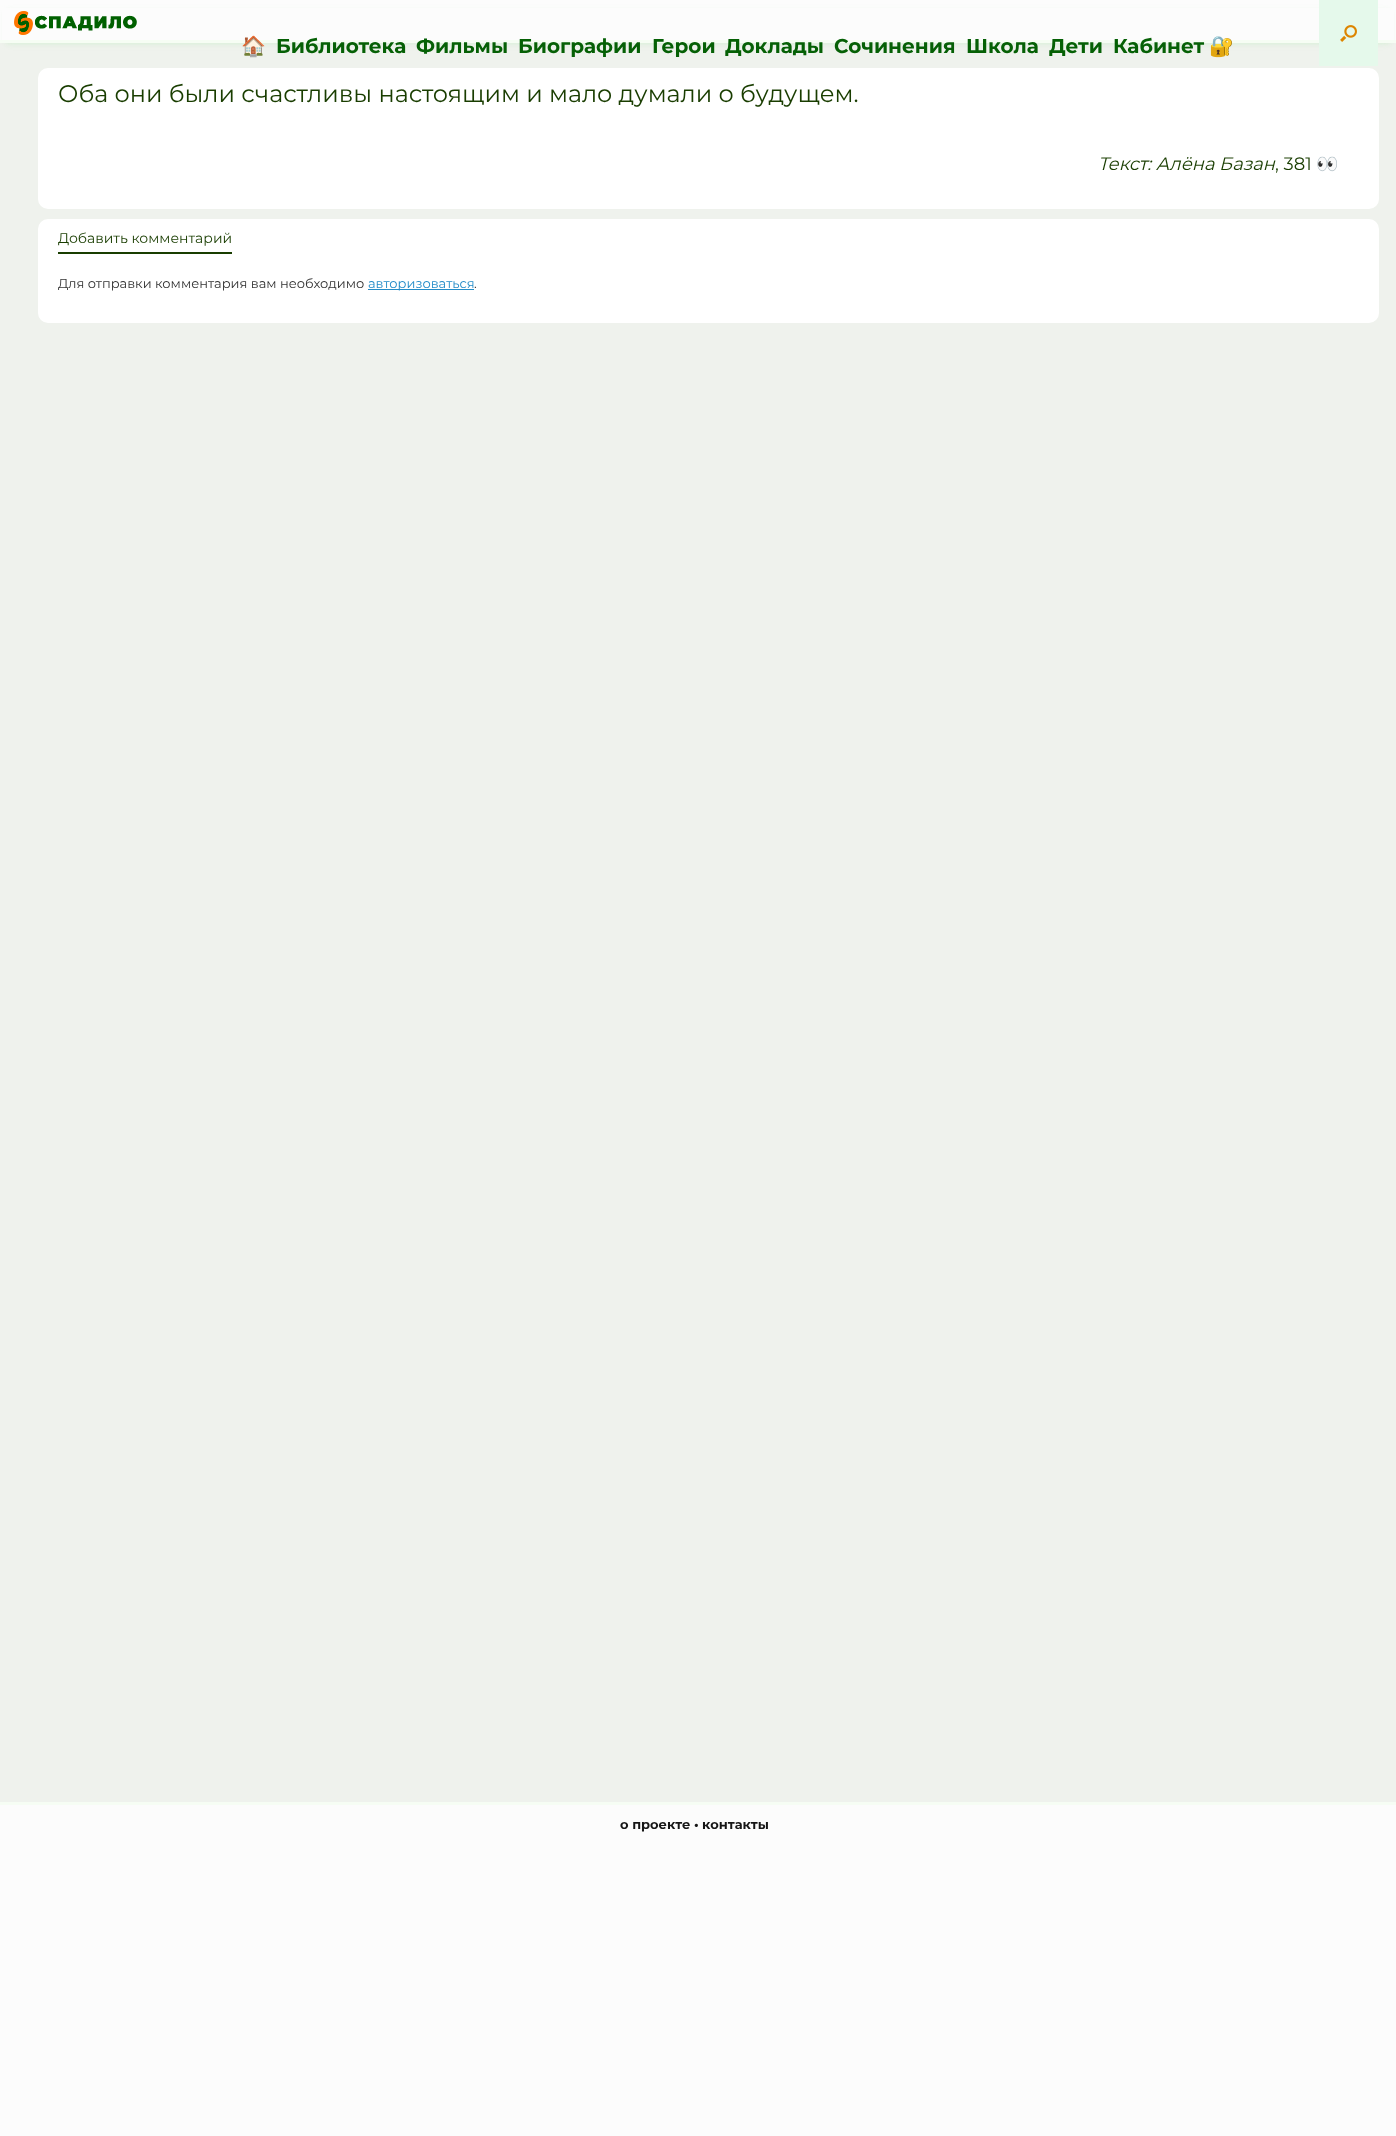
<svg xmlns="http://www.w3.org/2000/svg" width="1396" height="2136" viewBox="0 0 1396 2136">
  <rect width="100%" height="100%" fill="#fcfcfc"/>
  <path d="M0 43h1396v1759H0z" fill="#eff2ed"/>
  <path d="M6 12h1384v31H6z" fill="#b1eab180" filter="blur(3px)"/>
  <path d="M2 8h1392v32H2z" fill="#fcfcfc"/>
  <path d="M0 40h1396v3H0z" fill="#f6fdf4"/>
  <image x="14" y="11" width="123" height="24" href="img/1.png"/>
  <path d="M1319 0h59v66H1319z" fill="#e5f9eb"/>
  <image x="1340" y="25" width="17" height="17" href="img/2.png"/>
  <rect x="38" y="68" width="1341" height="141" rx="10" fill="#fff"/>
  <rect x="38" y="219" width="1341" height="104" rx="10" fill="#fff"/>
  <path d="M58 252h174v2H58z" fill="#193d00"/>
  <path d="M368 289h106v1H368z" fill="#248cc8"/>
  <path d="M0 1802h1396v3H0z" fill="#f6fdf4"/>
  <text x="241" y="53" font-family="Noto Color Emoji" font-size="20" font-weight="bold" fill="#056005">🏠</text>
  <g font-family="Montserrat" font-size="20" font-weight="bold" fill="#056005">
    <text x="276" y="53">Библиотека</text>
    <text x="416" y="53">Фильмы</text>
    <text x="518" y="53">Биографии</text>
    <text x="652" y="53">Герои</text>
    <text x="725" y="53">Доклады</text>
    <text x="834" y="53">Сочинения</text>
    <text x="966" y="53">Школа</text>
    <text x="1049" y="53">Дети</text>
    <text x="1113" y="53">Кабинет</text>
  </g>
  <text x="1209" y="53" font-family="Noto Color Emoji" font-size="20" font-weight="bold" fill="#056005">🔐</text>
  <text x="58" y="102" font-family="Montserrat" font-size="24" fill="#193d00">Оба они были счастливы настоящим и мало думали о будущем.</text>
  <text x="1098" y="170" font-family="Montserrat" font-size="18" font-style="italic" fill="#193d00">Текст: Алёна Базан</text>
  <text x="1275" y="170" font-family="Montserrat" font-size="18" fill="#193d00">, 381</text>
  <text x="1316" y="170" font-family="Noto Color Emoji" font-size="18" fill="#193d00">👀</text>
  <text x="58" y="243" font-family="Montserrat" font-size="14" fill="#193d00">Добавить комментарий</text>
  <text x="58" y="288" font-family="Montserrat" font-size="13" fill="#333">Для отправки комментария вам необходимо</text>
  <text x="368" y="288" font-family="Montserrat" font-size="13" fill="#248cc8">авторизоваться</text>
  <text x="474" y="288" font-family="Montserrat" font-size="13" fill="#333">.</text>
  <g font-family="Montserrat" font-size="13" font-weight="bold" fill="#161616">
    <text x="620" y="1829">о проекте</text>
    <text x="694" y="1829">•</text>
    <text x="702" y="1829">контакты</text>
  </g>
</svg>
